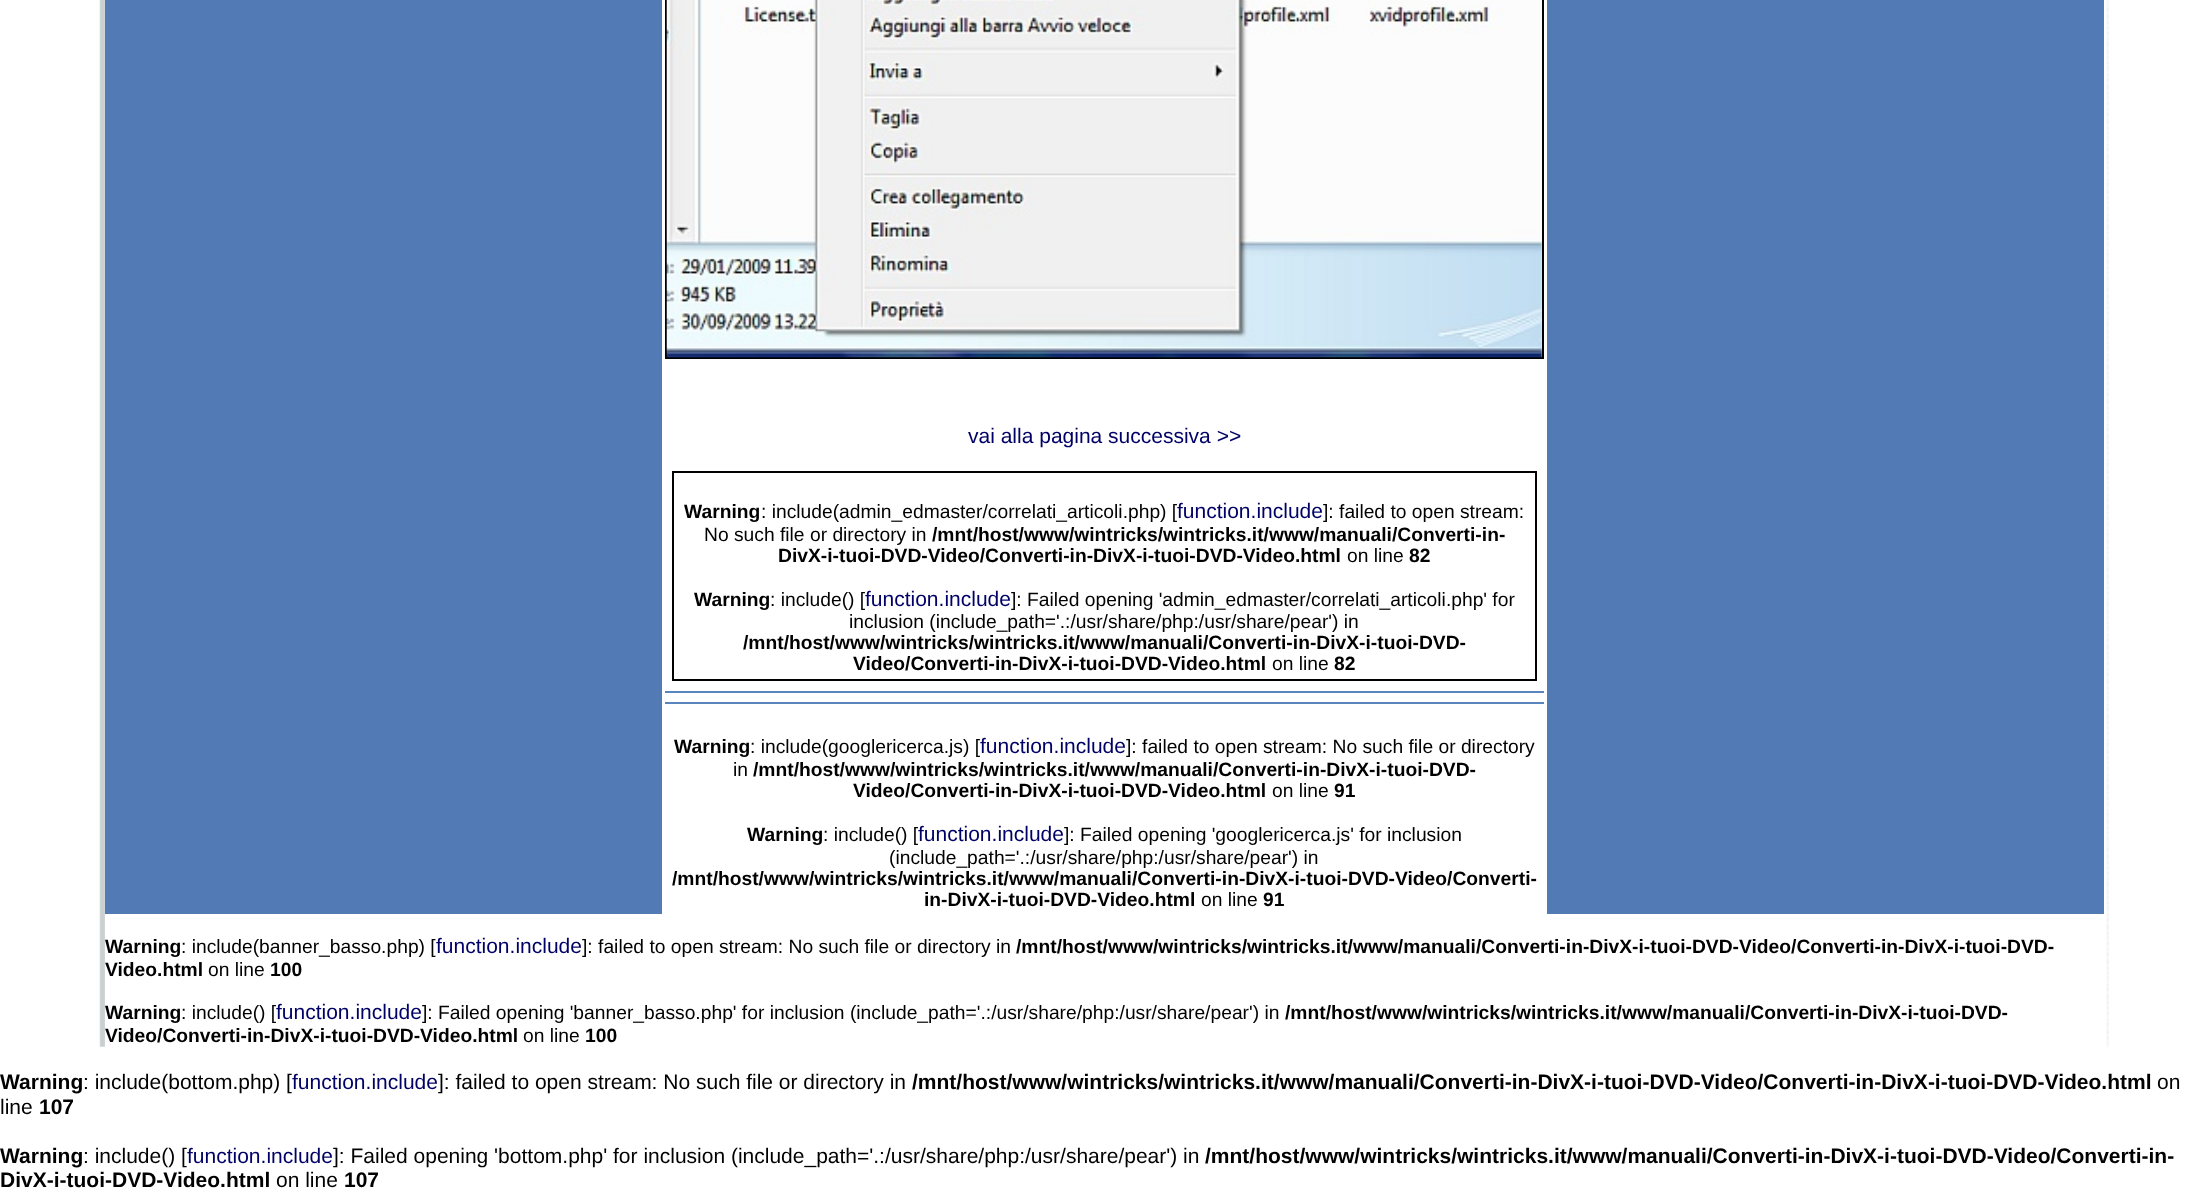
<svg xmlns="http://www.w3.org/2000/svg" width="2208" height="1192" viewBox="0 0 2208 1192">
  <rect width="100%" height="100%" fill="#fff"/>
  <image x="99" y="0" width="6" height="1047" href="img/1.png"/>
  <path d="M105 0h557v914H105z" fill="#527bb5"/>
  <path d="M1547 0h557v914H1547z" fill="#527bb5"/>
  <path d="M666 -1h877v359H666z" fill="none" stroke="#000" stroke-width="2"/>
  <image x="666" y="0" width="876" height="358" href="img/2.png"/>
  <path d="M673 472h863v208H673z" fill="none" stroke="#000" stroke-width="2"/>
  <path d="M665 691h879v2H665z" fill="#5a84bd"/>
  <path d="M665 702h879v2H665z" fill="#5a84bd"/>
  <image x="2106" y="0" width="3" height="1047" href="img/3.png"/>
  <text x="968" y="443" font-family="Liberation Sans" font-size="21" fill="#006">vai alla pagina successiva &gt;&gt;</text>
  <text x="684" y="518" font-family="Liberation Sans" font-size="19.25" font-weight="bold" fill="#000">Warning</text>
  <text x="761" y="518" font-family="Liberation Sans" font-size="19.25" fill="#000">: include(admin_edmaster/correlati_articoli.php) [</text>
  <text x="1177" y="518" font-family="Liberation Sans" font-size="21" fill="#006">function.include</text>
  <g font-family="Liberation Sans" font-size="19.25" fill="#000">
    <text x="1323" y="518">]: failed to open stream:</text>
    <text x="704" y="541">No such file or directory in</text>
  </g>
  <g font-family="Liberation Sans" font-size="19.25" font-weight="bold" fill="#000">
    <text x="932" y="541">/mnt/host/www/wintricks/wintricks.it/www/manuali/Converti-in-</text>
    <text x="778" y="562">DivX-i-tuoi-DVD-Video/Converti-in-DivX-i-tuoi-DVD-Video.html</text>
  </g>
  <text x="1347" y="562" font-family="Liberation Sans" font-size="19.25" fill="#000">on line</text>
  <g font-family="Liberation Sans" font-size="19.25" font-weight="bold" fill="#000">
    <text x="1409" y="562">82</text>
    <text x="694" y="606">Warning</text>
  </g>
  <text x="770" y="606" font-family="Liberation Sans" font-size="19.25" fill="#000">: include() [</text>
  <text x="865" y="606" font-family="Liberation Sans" font-size="21" fill="#006">function.include</text>
  <g font-family="Liberation Sans" font-size="19.25" fill="#000">
    <text x="1011" y="606">]: Failed opening 'admin_edmaster/correlati_articoli.php' for</text>
    <text x="849" y="628">inclusion (include_path='.:/usr/share/php:/usr/share/pear') in</text>
  </g>
  <g font-family="Liberation Sans" font-size="19.25" font-weight="bold" fill="#000">
    <text x="743" y="649">/mnt/host/www/wintricks/wintricks.it/www/manuali/Converti-in-DivX-i-tuoi-DVD-</text>
    <text x="853" y="670">Video/Converti-in-DivX-i-tuoi-DVD-Video.html</text>
  </g>
  <text x="1272" y="670" font-family="Liberation Sans" font-size="19.25" fill="#000">on line</text>
  <g font-family="Liberation Sans" font-size="19.25" font-weight="bold" fill="#000">
    <text x="1334" y="670">82</text>
    <text x="674" y="753">Warning</text>
  </g>
  <text x="750" y="753" font-family="Liberation Sans" font-size="19.25" fill="#000">: include(googlericerca.js) [</text>
  <text x="980" y="753" font-family="Liberation Sans" font-size="21" fill="#006">function.include</text>
  <g font-family="Liberation Sans" font-size="19.25" fill="#000">
    <text x="1126" y="753">]: failed to open stream: No such file or directory</text>
    <text x="733" y="776">in</text>
  </g>
  <g font-family="Liberation Sans" font-size="19.25" font-weight="bold" fill="#000">
    <text x="753" y="776">/mnt/host/www/wintricks/wintricks.it/www/manuali/Converti-in-DivX-i-tuoi-DVD-</text>
    <text x="853" y="797">Video/Converti-in-DivX-i-tuoi-DVD-Video.html</text>
  </g>
  <text x="1272" y="797" font-family="Liberation Sans" font-size="19.25" fill="#000">on line</text>
  <g font-family="Liberation Sans" font-size="19.25" font-weight="bold" fill="#000">
    <text x="1334" y="797">91</text>
    <text x="747" y="841">Warning</text>
  </g>
  <text x="823" y="841" font-family="Liberation Sans" font-size="19.25" fill="#000">: include() [</text>
  <text x="918" y="841" font-family="Liberation Sans" font-size="21" fill="#006">function.include</text>
  <g font-family="Liberation Sans" font-size="19.25" fill="#000">
    <text x="1064" y="841">]: Failed opening 'googlericerca.js' for inclusion</text>
    <text x="889" y="864">(include_path='.:/usr/share/php:/usr/share/pear') in</text>
  </g>
  <g font-family="Liberation Sans" font-size="19.25" font-weight="bold" fill="#000">
    <text x="672" y="885">/mnt/host/www/wintricks/wintricks.it/www/manuali/Converti-in-DivX-i-tuoi-DVD-Video/Converti-</text>
    <text x="924" y="906">in-DivX-i-tuoi-DVD-Video.html</text>
  </g>
  <text x="1201" y="906" font-family="Liberation Sans" font-size="19.25" fill="#000">on line</text>
  <g font-family="Liberation Sans" font-size="19.25" font-weight="bold" fill="#000">
    <text x="1263" y="906">91</text>
    <text x="105" y="953">Warning</text>
  </g>
  <text x="181" y="953" font-family="Liberation Sans" font-size="19.25" fill="#000">: include(banner_basso.php) [</text>
  <text x="436" y="953" font-family="Liberation Sans" font-size="21" fill="#006">function.include</text>
  <text x="582" y="953" font-family="Liberation Sans" font-size="19.25" fill="#000">]: failed to open stream: No such file or directory in</text>
  <g font-family="Liberation Sans" font-size="19.25" font-weight="bold" fill="#000">
    <text x="1016" y="953">/mnt/host/www/wintricks/wintricks.it/www/manuali/Converti-in-DivX-i-tuoi-DVD-Video/Converti-in-DivX-i-tuoi-DVD-</text>
    <text x="105" y="976">Video.html</text>
  </g>
  <text x="208" y="976" font-family="Liberation Sans" font-size="19.25" fill="#000">on line</text>
  <g font-family="Liberation Sans" font-size="19.25" font-weight="bold" fill="#000">
    <text x="270" y="976">100</text>
    <text x="105" y="1019">Warning</text>
  </g>
  <text x="181" y="1019" font-family="Liberation Sans" font-size="19.25" fill="#000">: include() [</text>
  <text x="276" y="1019" font-family="Liberation Sans" font-size="21" fill="#006">function.include</text>
  <text x="422" y="1019" font-family="Liberation Sans" font-size="19.25" fill="#000">]: Failed opening 'banner_basso.php' for inclusion (include_path='.:/usr/share/php:/usr/share/pear') in</text>
  <g font-family="Liberation Sans" font-size="19.25" font-weight="bold" fill="#000">
    <text x="1285" y="1019">/mnt/host/www/wintricks/wintricks.it/www/manuali/Converti-in-DivX-i-tuoi-DVD-</text>
    <text x="105" y="1042">Video/Converti-in-DivX-i-tuoi-DVD-Video.html</text>
  </g>
  <text x="523" y="1042" font-family="Liberation Sans" font-size="19.25" fill="#000">on line</text>
  <text x="585" y="1042" font-family="Liberation Sans" font-size="19.25" font-weight="bold" fill="#000">100</text>
  <text x="0" y="1089" font-family="Liberation Sans" font-size="21" font-weight="bold" fill="#000">Warning</text>
  <text x="83" y="1089" font-family="Liberation Sans" font-size="21" fill="#000">: include(bottom.php) [</text>
  <text x="292" y="1089" font-family="Liberation Sans" font-size="21" fill="#006">function.include</text>
  <text x="438" y="1089" font-family="Liberation Sans" font-size="21" fill="#000">]: failed to open stream: No such file or directory in</text>
  <text x="912" y="1089" font-family="Liberation Sans" font-size="21" font-weight="bold" fill="#000">/mnt/host/www/wintricks/wintricks.it/www/manuali/Converti-in-DivX-i-tuoi-DVD-Video/Converti-in-DivX-i-tuoi-DVD-Video.html</text>
  <g font-family="Liberation Sans" font-size="21" fill="#000">
    <text x="2157" y="1089">on</text>
    <text x="0" y="1114">line</text>
  </g>
  <g font-family="Liberation Sans" font-size="21" font-weight="bold" fill="#000">
    <text x="39" y="1114">107</text>
    <text x="0" y="1163">Warning</text>
  </g>
  <text x="83" y="1163" font-family="Liberation Sans" font-size="21" fill="#000">: include() [</text>
  <text x="187" y="1163" font-family="Liberation Sans" font-size="21" fill="#006">function.include</text>
  <text x="333" y="1163" font-family="Liberation Sans" font-size="21" fill="#000">]: Failed opening 'bottom.php' for inclusion (include_path='.:/usr/share/php:/usr/share/pear') in</text>
  <g font-family="Liberation Sans" font-size="21" font-weight="bold" fill="#000">
    <text x="1205" y="1163">/mnt/host/www/wintricks/wintricks.it/www/manuali/Converti-in-DivX-i-tuoi-DVD-Video/Converti-in-</text>
    <text x="0" y="1187">DivX-i-tuoi-DVD-Video.html</text>
  </g>
  <text x="276" y="1187" font-family="Liberation Sans" font-size="21" fill="#000">on line</text>
  <text x="344" y="1187" font-family="Liberation Sans" font-size="21" font-weight="bold" fill="#000">107</text>
</svg>
